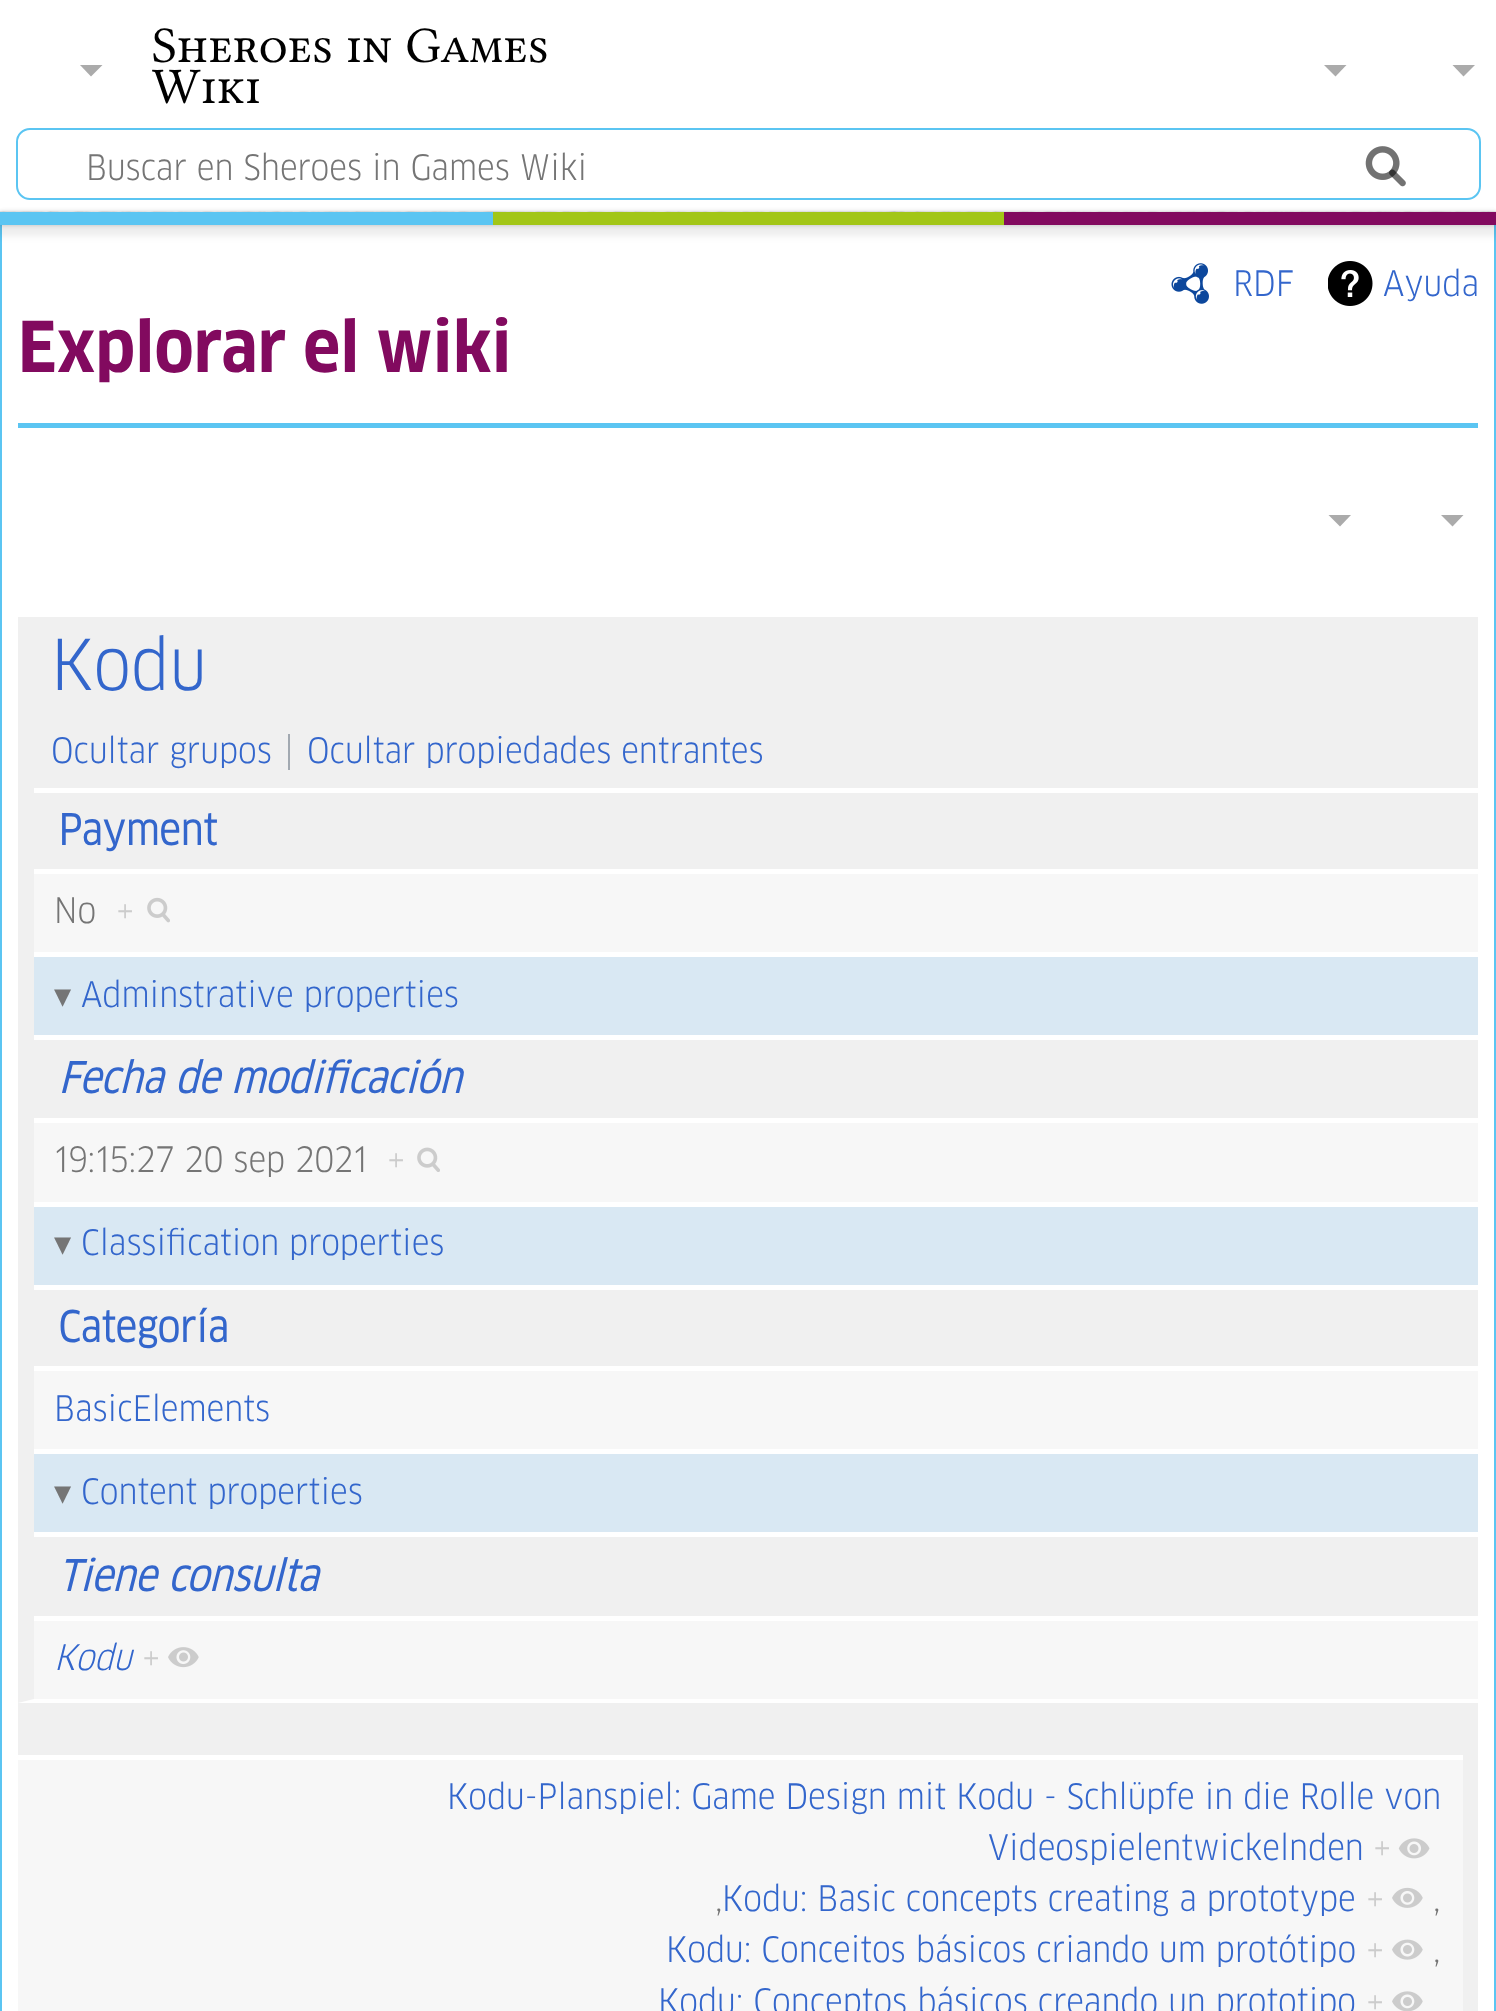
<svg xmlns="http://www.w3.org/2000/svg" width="1496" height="2011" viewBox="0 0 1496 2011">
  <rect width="100%" height="100%" fill="#fff"/>
  <path d="M1475 65L1463.5 76.5L1452.5 65Z" fill="#ababab"/>
  <rect x="17" y="129" width="1463" height="70" rx="13" fill="none" stroke="#5bc5f2" stroke-width="2"/>
  <image x="1365" y="146" width="41" height="41" href="img/1.png"/>
  <image x="1365" y="146" width="41" height="41" href="img/2.png"/>
  <image x="0" y="211" width="1496" height="1" href="img/3.png"/>
  <path d="M1492 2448C1494 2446 1496 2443 1496 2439V212L1494 216V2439C1494 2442 1493 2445 1491 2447Z" fill="#5bc5f2"/>
  <path d="M2 216V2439C2 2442 3 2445 6 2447L4 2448C2 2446 0 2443 0 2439V212Z" fill="#5bc5f2"/>
  <path d="M0 212h1496v13H0z" fill="#00000033" filter="blur(2px)"/>
  <path d="M-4 214h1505v22H-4z" fill="#00000012" filter="blur(3.5px)"/>
  <path d="M0 212h493v13H0z" fill="#5bc5f2"/>
  <path d="M493 212h511v13H493z" fill="#a2c617"/>
  <path d="M1004 212h492v13H1004z" fill="#820a5f"/>
  <path d="M102.5 65L91 76.5L80 65Z" fill="#ababab"/>
  <path d="M1346.5 65L1335.5 76.5L1324 65Z" fill="#ababab"/>
  <image x="1171" y="263" width="38" height="41" href="img/4.png"/>
  <image x="1328" y="261" width="45" height="45" href="img/5.png"/>
  <path d="M18 423h1460v5H18z" fill="#5bc5f2"/>
  <path d="M1351 515L1340 526.5L1328.5 515Z" fill="#ababab"/>
  <path d="M1463.5 515L1452.5 526.5L1441 515Z" fill="#ababab"/>
  <path d="M18 617h1460v101H18z" fill="#f0f0f0"/>
  <path d="M18 718h1460v70H18z" fill="#f0f0f0"/>
  <path d="M288 734h2v36H288z" fill="#a2a9b1"/>
  <path d="M18 788h16v744H18z" fill="#f0f0f0"/>
  <path d="M34 793h1444v76H34z" fill="#f0f0f0"/>
  <path d="M34 874h1444v78H34z" fill="#f7f7f7"/>
  <image x="147" y="897" width="23" height="26" href="img/6.png"/>
  <path d="M34 957h1444v78H34z" fill="#d9e8f3"/>
  <path d="M34 1040h1444v78H34z" fill="#f0f0f0"/>
  <path d="M34 1123h1444v79H34z" fill="#f7f7f7"/>
  <image x="417" y="1147" width="23" height="25" href="img/7.png"/>
  <path d="M34 1207h1444v78H34z" fill="#d9e8f3"/>
  <path d="M34 1290h1444v76H34z" fill="#f0f0f0"/>
  <path d="M34 1371h1444v78H34z" fill="#f7f7f7"/>
  <path d="M34 1454h1444v78H34z" fill="#d9e8f3"/>
  <path d="M18 1703V1532H34V1699Z" fill="#f0f0f0"/>
  <path d="M34 1537h1444v79H34z" fill="#f0f0f0"/>
  <path d="M34 1621h1444v78H34z" fill="#f7f7f7"/>
  <image x="168" y="1647" width="31" height="21" href="img/8.png"/>
  <path d="M18 1703h1460v52H18z" fill="#f0f0f0"/>
  <path d="M1478 1755V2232L1462 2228V1755Z" fill="#f0f0f0"/>
  <path d="M18 1760h1445v251H18z" fill="#f7f7f7"/>
  <path d="M1462 1755h1v5H1462z" fill="#fff"/>
  <image x="1398" y="1838" width="32" height="21" href="img/9.png"/>
  <image x="1392" y="1887" width="31" height="21" href="img/10.png"/>
  <image x="1392" y="1939" width="31" height="21" href="img/11.png"/>
  <image x="1392" y="1991" width="31" height="20" href="img/12.png"/>
  <g font-family="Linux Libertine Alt" font-size="51.25" fill="#000">
    <text x="152" y="62">Sheroes in Games</text>
    <text x="152" y="103">Wiki</text>
  </g>
  <text x="86" y="180" font-family="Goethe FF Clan" font-size="34.2" fill="#757575">Buscar en Sheroes in Games Wiki</text>
  <g font-family="Goethe FF Clan" font-size="34.2" fill="#36c">
    <text x="1233" y="296">RDF</text>
    <text x="1383" y="296">Ayuda</text>
  </g>
  <text x="18" y="372" font-family="Goethe FF Clan" font-size="68.5" font-weight="bold" fill="#820a5f">Explorar el wiki</text>
  <text x="51" y="690" font-family="Goethe FF Clan" font-size="68.5" fill="#36c">Kodu</text>
  <g font-family="Goethe FF Clan" font-size="34.2" fill="#36c">
    <text x="51" y="763">Ocultar grupos</text>
    <text x="307" y="763">Ocultar propiedades entrantes</text>
  </g>
  <text x="58" y="845" font-family="'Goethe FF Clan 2'" font-size="41" font-weight="bold" fill="#36c">Payment</text>
  <text x="54" y="923" font-family="Goethe FF Clan" font-size="34.2" fill="#757575">No</text>
  <text x="116" y="923" font-family="Goethe FF Clan" font-size="34.2" fill="#ccc">+</text>
  <text x="54" y="1007" font-family="DejaVu Sans" font-size="34.2" fill="#757575">▾</text>
  <text x="81" y="1007" font-family="Goethe FF Clan" font-size="34.2" fill="#36c">Adminstrative properties</text>
  <text x="58" y="1093" font-family="Goethe FF Clan" font-size="41" font-weight="bold" font-style="italic" fill="#36c">Fecha de modificación</text>
  <text x="54" y="1172" font-family="Goethe FF Clan" font-size="34.2" fill="#757575">19:15:27 20 sep 2021</text>
  <text x="387" y="1172" font-family="Goethe FF Clan" font-size="34.2" fill="#ccc">+</text>
  <text x="54" y="1255" font-family="DejaVu Sans" font-size="34.2" fill="#757575">▾</text>
  <text x="81" y="1255" font-family="Goethe FF Clan" font-size="34.2" fill="#36c">Classification properties</text>
  <text x="58" y="1342" font-family="'Goethe FF Clan 2'" font-size="41" font-weight="bold" fill="#36c">Categoría</text>
  <text x="54" y="1421" font-family="Goethe FF Clan" font-size="34.2" fill="#36c">BasicElements</text>
  <text x="54" y="1504" font-family="DejaVu Sans" font-size="34.2" fill="#757575">▾</text>
  <text x="81" y="1504" font-family="Goethe FF Clan" font-size="34.2" fill="#36c">Content properties</text>
  <text x="58" y="1591" font-family="Goethe FF Clan" font-size="41" font-weight="bold" font-style="italic" fill="#36c">Tiene consulta</text>
  <text x="54" y="1670" font-family="Goethe FF Clan" font-size="34.2" font-style="italic" fill="#36c">Kodu</text>
  <text x="142" y="1670" font-family="Goethe FF Clan" font-size="34.2" fill="#ccc">+</text>
  <g font-family="Goethe FF Clan" font-size="34.2" fill="#36c">
    <text x="447" y="1809">Kodu-Planspiel: Game Design mit Kodu - Schlüpfe in die Rolle von</text>
    <text x="988" y="1860">Videospielentwickelnden</text>
  </g>
  <text x="1373" y="1860" font-family="Goethe FF Clan" font-size="34.2" fill="#ccc">+</text>
  <text x="715" y="1911" font-family="Goethe FF Clan" font-size="34.2" fill="#757575">,</text>
  <text x="722" y="1911" font-family="Goethe FF Clan" font-size="34.2" fill="#36c">Kodu: Basic concepts creating a prototype</text>
  <text x="1366" y="1911" font-family="Goethe FF Clan" font-size="34.2" fill="#ccc">+</text>
  <text x="1433" y="1911" font-family="Goethe FF Clan" font-size="34.2" fill="#757575">,</text>
  <text x="666" y="1962" font-family="Goethe FF Clan" font-size="34.2" fill="#36c">Kodu: Conceitos básicos criando um protótipo</text>
  <text x="1366" y="1962" font-family="Goethe FF Clan" font-size="34.2" fill="#ccc">+</text>
  <text x="1433" y="1962" font-family="Goethe FF Clan" font-size="34.2" fill="#757575">,</text>
  <text x="658" y="2014" font-family="Goethe FF Clan" font-size="34.2" fill="#36c">Kodu: Conceptos básicos creando un prototipo</text>
  <text x="1366" y="2014" font-family="Goethe FF Clan" font-size="34.2" fill="#ccc">+</text>
</svg>
